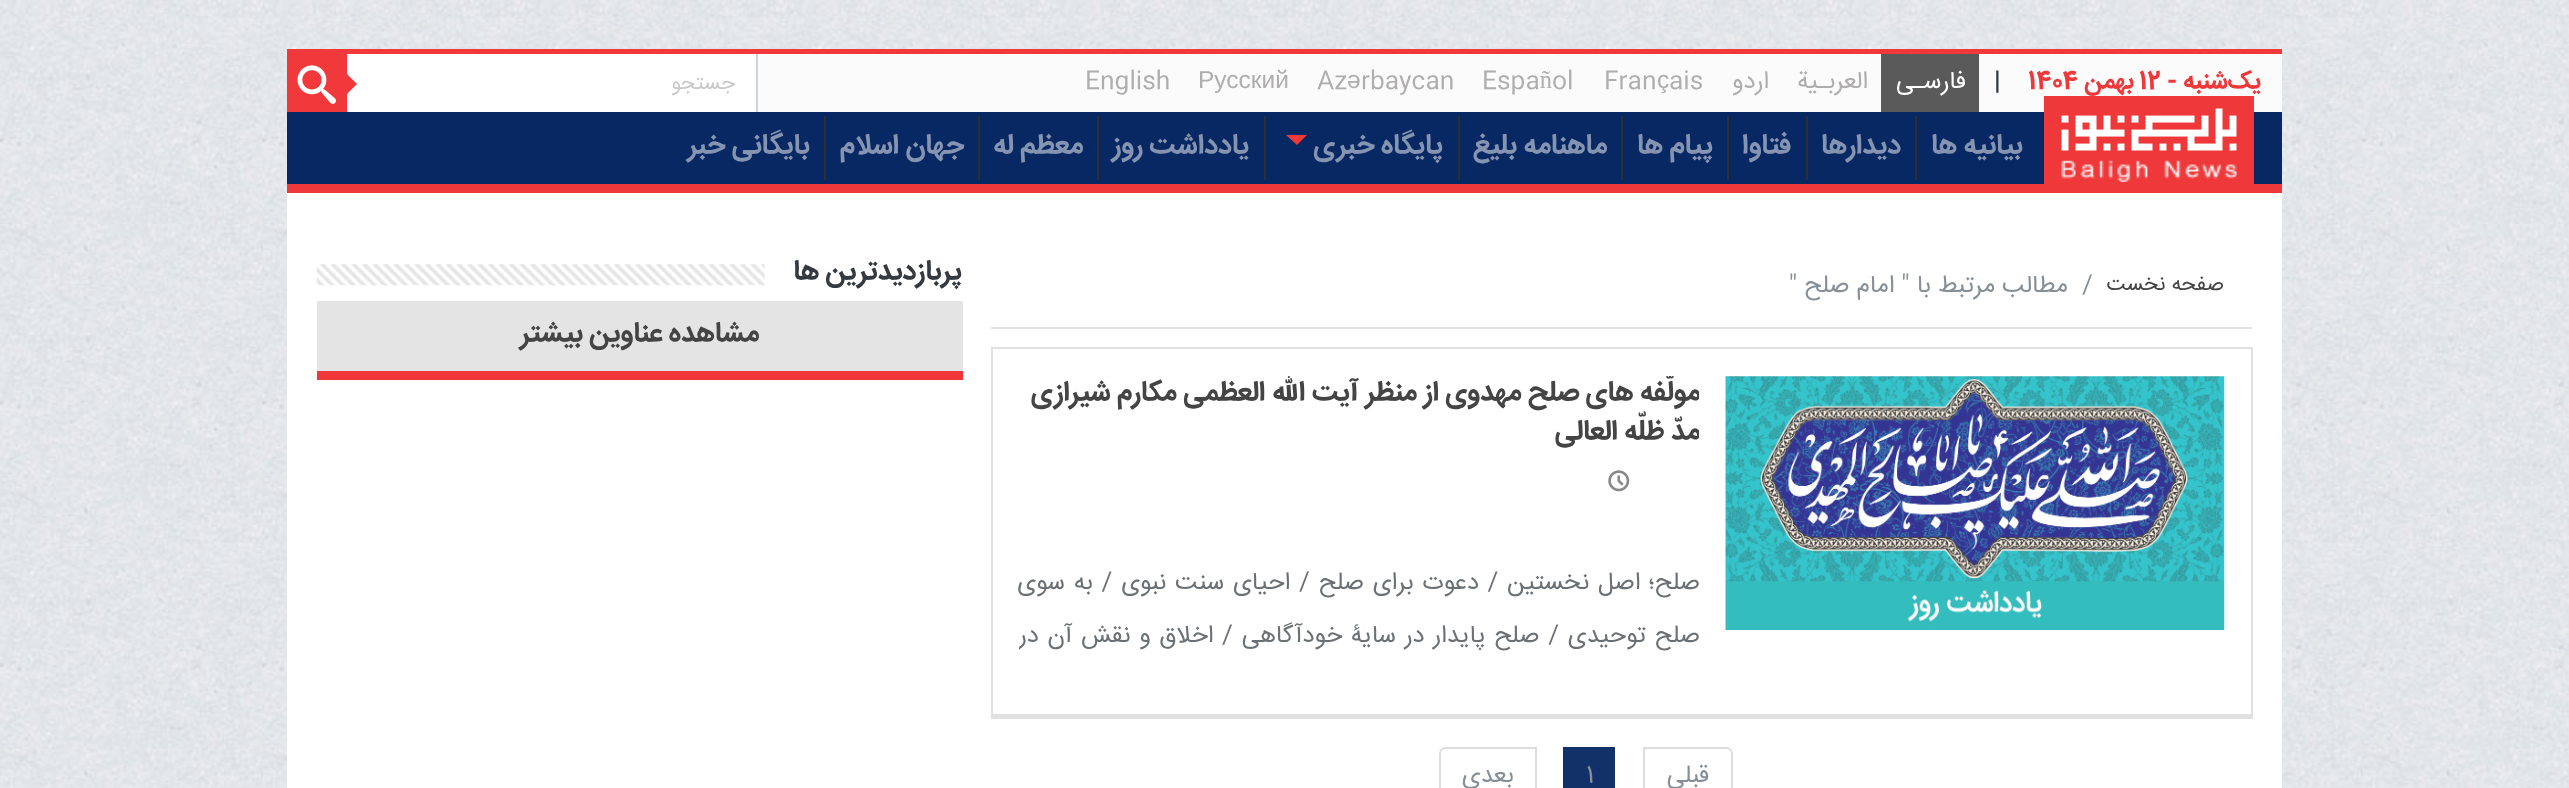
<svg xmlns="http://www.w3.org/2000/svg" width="2569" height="788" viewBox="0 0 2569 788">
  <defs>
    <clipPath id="clip1"><path d="M1019 376h680v79H1019z"/></clipPath>
    <clipPath id="clip2"><path d="M1019 515h680v157H1019z"/></clipPath>
  </defs>
  <rect width="100%" height="100%" fill="#fff"/>
  <image x="0" y="0" width="2569" height="788" href="img/1.png"/>
  <path d="M287 193h1995v595H287z" fill="#fff"/>
  <path d="M758 54h1524v58H758z" fill="#fbfbfb"/>
  <path d="M287 49h1995v5H287z" fill="#f1393b"/>
  <path d="M1881 54h98v58H1881z" fill="#5a5a5a"/>
  <path d="M347 54h409v58H347z" fill="#fff"/>
  <path d="M756 54h2v58H756z" fill="#ced4da"/>
  <path d="M287 54h60v58H287z" fill="#f1393b"/>
  <image x="297" y="65" width="39" height="39" href="img/2.png"/>
  <path d="M346.5 94.5V73.5L357 84Z" fill="#f1393b"/>
  <path d="M287 112h1995v72H287z" fill="#082863"/>
  <path d="M287 184h1995v9H287z" fill="#ef383a"/>
  <path d="M2044 96h210v88H2044z" fill="#ef383a"/>
  <image x="2061" y="108" width="176" height="74" href="img/3.png"/>
  <path d="M1915 116h2v64H1915z" fill="#2f2f2f"/>
  <path d="M1806 116h2v64H1806z" fill="#2f2f2f"/>
  <path d="M1727 116h2v64H1727z" fill="#2f2f2f"/>
  <path d="M1621 116h2v64H1621z" fill="#2f2f2f"/>
  <path d="M1458 116h2v64H1458z" fill="#2f2f2f"/>
  <path d="M1264 116h2v64H1264z" fill="#2f2f2f"/>
  <path d="M1286 135H1307L1297 145Z" fill="#ef383a"/>
  <path d="M1097 116h2v64H1097z" fill="#2f2f2f"/>
  <path d="M978 116h2v64H978z" fill="#2f2f2f"/>
  <path d="M824 116h2v64H824z" fill="#2f2f2f"/>
  <path d="M991 327h1261v2H991z" fill="#e1e1e1"/>
  <path d="M991 347h1261v2H991z" fill="#e1e1e1"/>
  <path d="M2251 347h2v372H2251z" fill="#e1e1e1"/>
  <path d="M991 714h1261v5H991z" fill="#e1e1e1"/>
  <path d="M991 347h2v372H991z" fill="#e1e1e1"/>
  <image x="1725" y="376" width="500" height="254" href="img/4.png"/>
  <image x="1608" y="470" width="22" height="22" href="img/5.png"/>
  <path d="M1644 748H1726C1729.5 748 1732 750.5 1732 754V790C1732 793.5 1729.5 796 1726 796H1644Z" fill="none" stroke="#ddd" stroke-width="2"/>
  <path d="M1563 747h52v41H1563z" fill="#123168"/>
  <path d="M1446 748H1536V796H1446C1442.5 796 1440 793.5 1440 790V754C1440 750.5 1442.5 748 1446 748Z" fill="none" stroke="#ddd" stroke-width="2"/>
  <image x="316" y="264" width="449" height="22" href="img/6.png"/>
  <path d="M317 301h646v70H317z" fill="#e4e4e4"/>
  <path d="M317 371h646v9H317z" fill="#f0383a"/>
  <text x="2261" y="88" font-family="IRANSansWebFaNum" font-size="24.5" font-weight="bold" direction="rtl" fill="#ef383a">یک‌شنبه -</text>
  <text x="2139" y="88" font-family="IRANSansWebFaNum" font-size="24.5" font-weight="bold" fill="#ef383a">12</text>
  <text x="2134" y="88" font-family="IRANSansWebFaNum" font-size="24.5" font-weight="bold" direction="rtl" fill="#ef383a">بهمن</text>
  <text x="2028" y="88" font-family="IRANSansWebFaNum" font-size="24.5" font-weight="bold" fill="#ef383a">1404</text>
  <text x="1994" y="88" font-family="IRANSansWebFaNum" font-size="24.5" font-weight="bold" fill="#343a40">|</text>
  <text x="1966" y="88" font-family="IRANSansWebFaNum" font-size="24.5" direction="rtl" fill="#fff">فارسـی</text>
  <g font-family="IRANSansWebFaNum" font-size="24.5" direction="rtl" fill="#afadae">
    <text x="1868" y="88">العربـیة</text>
    <text x="1769" y="88">اردو</text>
  </g>
  <text x="1669" y="88" font-family="IRANSansWebFaNum" font-size="24.5" fill="#afadae">ais</text>
  <text x="1657" y="88" font-family="Liberation Sans" font-size="24.5" fill="#afadae">ç</text>
  <g font-family="IRANSansWebFaNum" font-size="24.5" fill="#afadae">
    <text x="1604" y="88">Fran</text>
    <text x="1482" y="88">Español</text>
    <text x="1361" y="88">rbaycan</text>
  </g>
  <text x="1347" y="88" font-family="Liberation Sans" font-size="24.5" fill="#afadae">ə</text>
  <text x="1317" y="88" font-family="IRANSansWebFaNum" font-size="24.5" fill="#afadae">Az</text>
  <text x="1198" y="88" font-family="Liberation Sans" font-size="24.5" fill="#afadae">Русский</text>
  <text x="1085" y="88" font-family="IRANSansWebFaNum" font-size="24.5" fill="#afadae">English</text>
  <text x="735" y="89" font-family="IRANSansWebFaNum" font-size="21" direction="rtl" fill="#cac8c9">جستجو</text>
  <g font-family="IRANSansWebFaNum" font-size="28" font-weight="bold" direction="rtl" fill="#8494b1">
    <text x="2023" y="153">بیانیه ها</text>
    <text x="1901" y="153">دیدارها</text>
    <text x="1791" y="153">فتاوا</text>
    <text x="1713" y="153">پیام ها</text>
    <text x="1607" y="153">ماهنامه بلیغ</text>
    <text x="1443" y="153">پایگاه خبری</text>
    <text x="1249" y="153">یادداشت روز</text>
    <text x="1083" y="153">معظم له</text>
    <text x="964" y="153">جهان اسلام</text>
    <text x="810" y="153">بایگانی خبر</text>
  </g>
  <text x="2224" y="290" font-family="IRANSansWebFaNum" font-size="21" direction="rtl" fill="#444">صفحه نخست</text>
  <text x="2082" y="292" font-family="IRANSansWebFaNum" font-size="24.5" fill="#868e96">/</text>
  <text x="2068" y="292" font-family="IRANSansWebFaNum" font-size="24.5" direction="rtl" fill="#868e96">مطالب مرتبط با " امام صلح "</text>
  <g clip-path="url(#clip1)">
    <g font-family="IRANSansWebFaNum" font-size="28" font-weight="bold" direction="rtl" fill="#444">
      <text x="1700" y="400">مولّفه های صلح مهدوی از منظر آیت الله العظمی مکارم شیرازی</text>
      <text x="1700" y="439">مدّ ظلّه العالی</text>
    </g>
  </g>
  <text x="1700" y="589" word-spacing="1.75" font-family="IRANSansWebFaNum" font-size="24.5" direction="rtl" fill="#6b7074">صلح؛ اصل نخستین / دعوت برای صلح / احیای سنت نبوی / به سوی</text>
  <g clip-path="url(#clip2)">
    <text x="1700" y="642" word-spacing="1.75" font-family="IRANSansWebFaNum" font-size="24.5" direction="rtl" fill="#6b7074">صلح توحیدی / صلح پایدار در سایۀ خودآگاهی / اخلاق و نقش آن در</text>
  </g>
  <text x="1709" y="782" font-family="IRANSansWebFaNum" font-size="24.5" direction="rtl" fill="#868e96">قبلی</text>
  <text x="1586" y="782" font-family="IRANSansWebFaNum" font-size="24.5" fill="#868e96">1</text>
  <text x="1514" y="782" font-family="IRANSansWebFaNum" font-size="24.5" direction="rtl" fill="#868e96">بعدی</text>
  <text x="962" y="279" font-family="IRANSansWebFaNum" font-size="28" font-weight="bold" direction="rtl" fill="#343a40">پربازدیدترین ها</text>
  <text x="759" y="341" font-family="IRANSansWebFaNum" font-size="28" font-weight="bold" direction="rtl" fill="#444">مشاهده عناوین بیشتر</text>
</svg>
